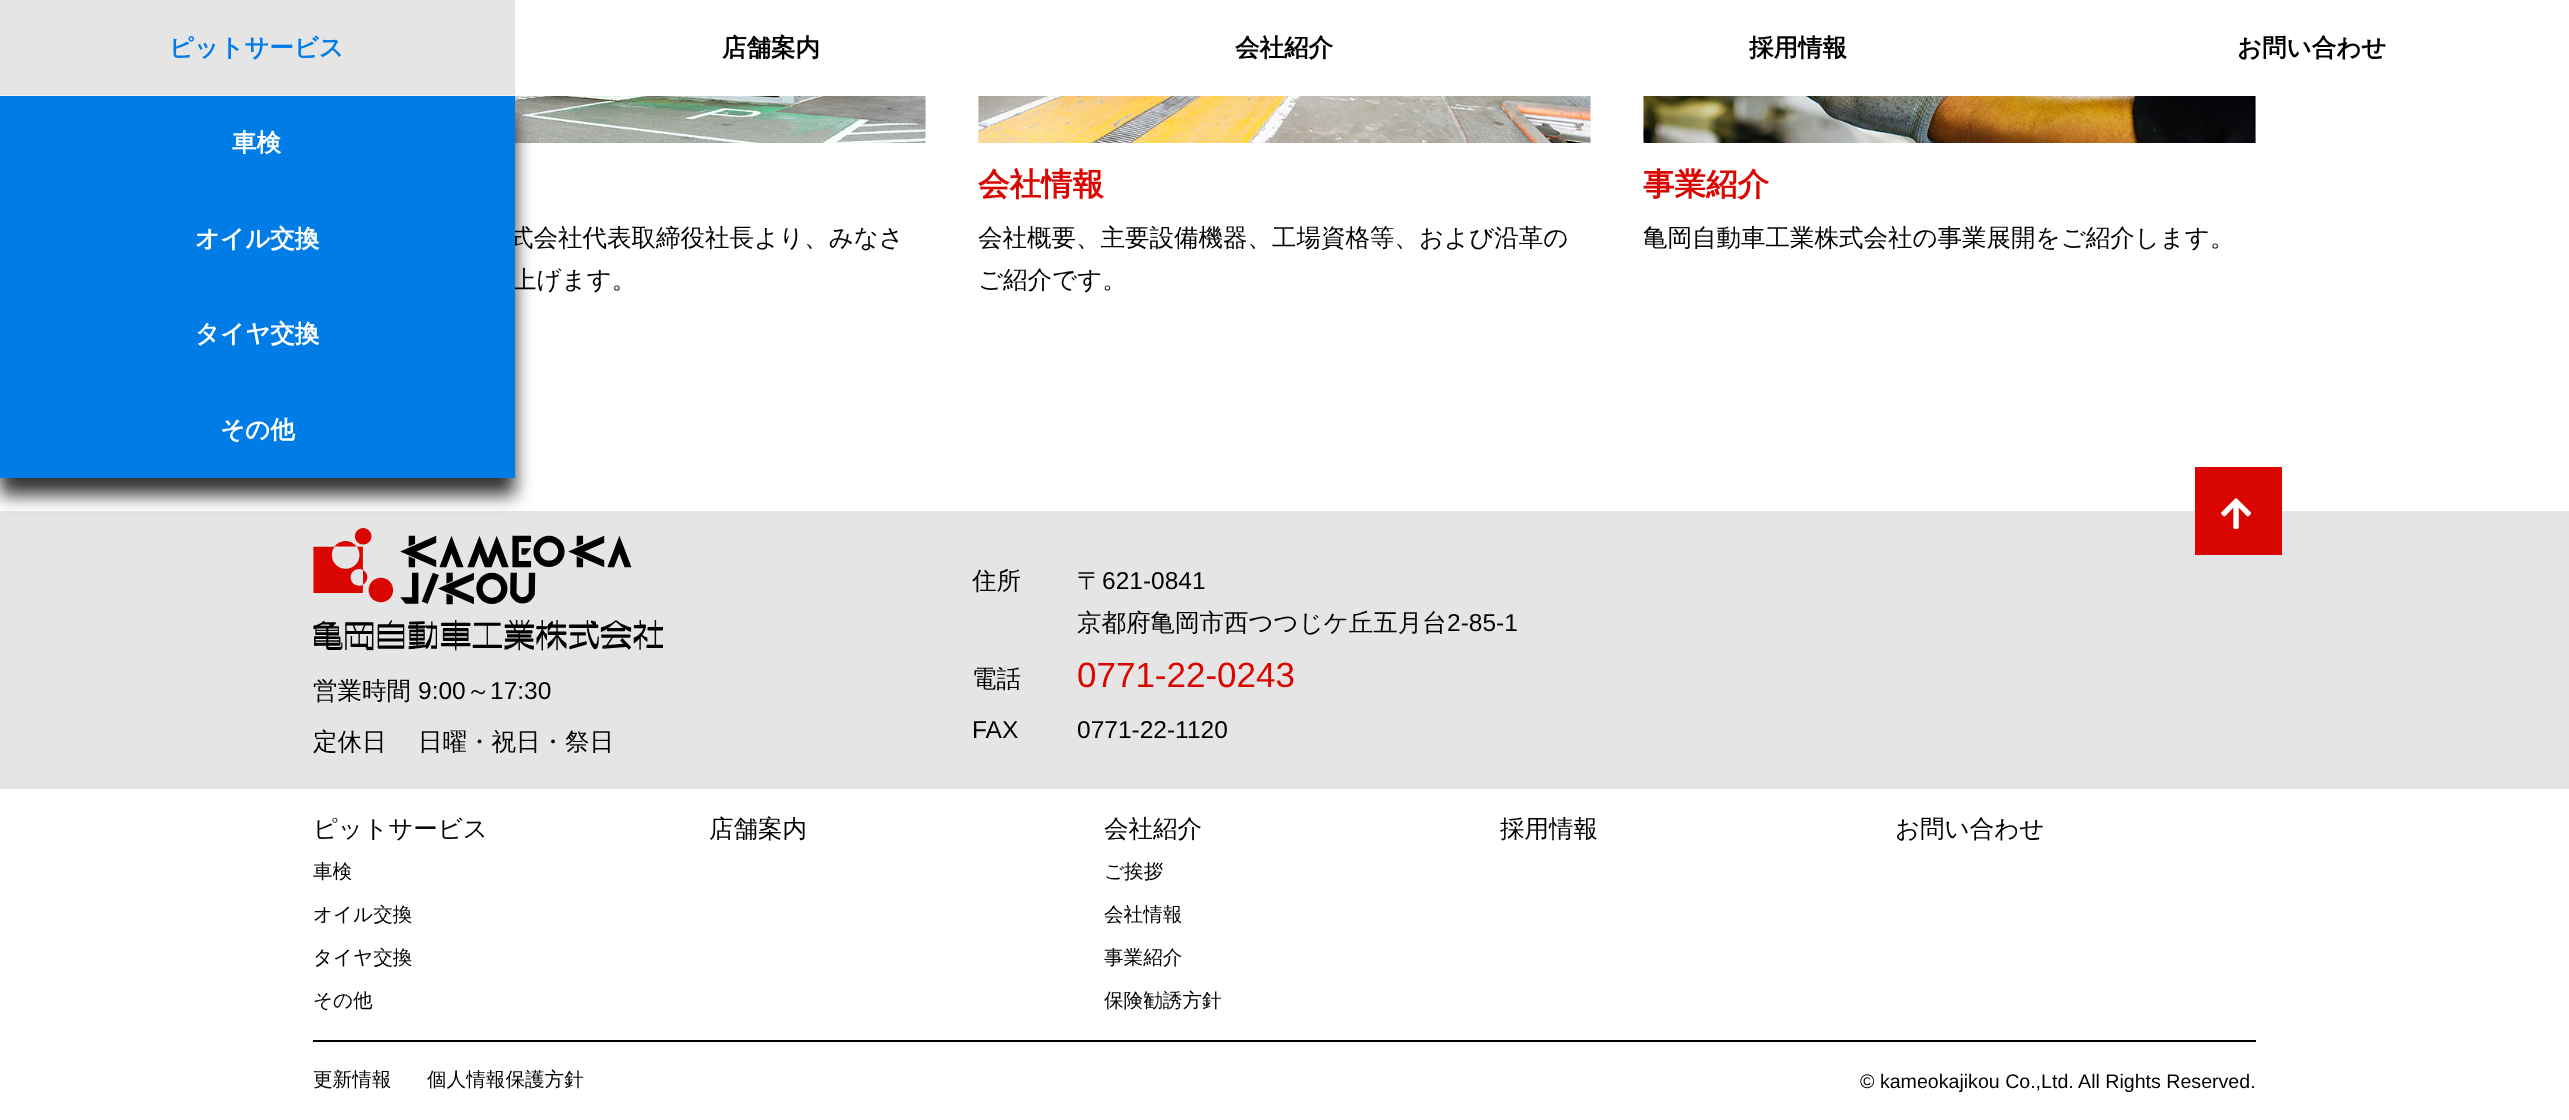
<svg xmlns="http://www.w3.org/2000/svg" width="2569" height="1120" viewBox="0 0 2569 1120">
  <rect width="100%" height="100%" fill="#fff"/>
  <path d="M0 0h515v96H0z" fill="#e5e5e5"/>
  <path d="M0 95h515v1H0z" fill="#ffffff99"/>
  <image x="515" y="96" width="411" height="47" href="img/3.png"/>
  <path d="M0 511h2569v278H0z" fill="#e5e5e5"/>
  <path d="M0 114h515v381H0z" fill="#000000cc" filter="blur(9px)"/>
  <image x="978" y="96" width="613" height="47" href="img/1.png"/>
  <image x="1643" y="96" width="613" height="47" href="img/2.png"/>
  <path d="M2195 467h87v88H2195z" fill="#da0601"/>
  <image x="2221" y="498" width="30" height="31" href="img/4.png"/>
  <image x="313" y="528" width="350" height="123" href="img/5.png"/>
  <path d="M313 1040h1943v2H313z" fill="#000"/>
  <text x="169" y="56" font-family="WenQuanYi Zen Hei" font-size="24.5" font-weight="bold" fill="#007ce7">ピットサービス</text>
  <g font-family="WenQuanYi Zen Hei" font-size="24.5" font-weight="bold" fill="#000">
    <text x="722" y="56">店舗案内</text>
    <text x="1235" y="56">会社紹介</text>
    <text x="1749" y="56">採用情報</text>
    <text x="2237" y="56">お問い合わせ</text>
  </g>
  <text x="978" y="195" font-family="WenQuanYi Zen Hei" font-size="31.5" font-weight="bold" fill="#da0601">会社情報</text>
  <g font-family="WenQuanYi Zen Hei" font-size="24.5" font-weight="500" fill="#000">
    <text x="978" y="246">会社概要、主要設備機器、工場資格等、および沿革の</text>
    <text x="978" y="288">ご紹介です。</text>
  </g>
  <text x="1643" y="195" font-family="WenQuanYi Zen Hei" font-size="31.5" font-weight="bold" fill="#da0601">事業紹介</text>
  <g font-family="WenQuanYi Zen Hei" font-size="24.5" font-weight="500" fill="#000">
    <text x="1643" y="246">亀岡自動車工業株式会社の事業展開をご紹介します。</text>
    <text x="509" y="246">式会社代表取締役社長より、みなさ</text>
    <text x="512" y="288">上げます。</text>
  </g>
  <path d="M0 96h515v382H0z" fill="#007ce7"/>
  <g font-family="WenQuanYi Zen Hei" font-size="24.5" font-weight="bold" fill="#fff">
    <text x="220" y="438">その他</text>
    <text x="195" y="342">タイヤ交換</text>
    <text x="195" y="247">オイル交換</text>
    <text x="232" y="151">車検</text>
  </g>
  <text x="313" y="699" font-family="WenQuanYi Zen Hei" font-size="24.5" font-weight="500" fill="#000">営業時間</text>
  <text x="418" y="699" font-family="Liberation Sans" font-size="24.5" fill="#000">9:00</text>
  <text x="466" y="699" font-family="WenQuanYi Zen Hei" font-size="24.5" font-weight="500" fill="#000">～</text>
  <text x="490" y="699" font-family="Liberation Sans" font-size="24.5" fill="#000">17:30</text>
  <g font-family="WenQuanYi Zen Hei" font-size="24.5" font-weight="500" fill="#000">
    <text x="313" y="750">定休日</text>
    <text x="418" y="750">日曜・祝日・祭日</text>
    <text x="972" y="589">住所</text>
    <text x="1077" y="589">〒</text>
  </g>
  <text x="1102" y="589" font-family="Liberation Sans" font-size="24.5" fill="#000">621-0841</text>
  <text x="1077" y="631" font-family="WenQuanYi Zen Hei" font-size="24.5" font-weight="500" fill="#000">京都府亀岡市西つつじケ丘五月台</text>
  <text x="1447" y="631" font-family="Liberation Sans" font-size="24.5" fill="#000">2-85-1</text>
  <text x="972" y="687" font-family="WenQuanYi Zen Hei" font-size="24.5" font-weight="500" fill="#000">電話</text>
  <text x="1077" y="687" font-family="Liberation Sans" font-size="35" fill="#da0601">0771-22-0243</text>
  <g font-family="Liberation Sans" font-size="24.5" fill="#000">
    <text x="972" y="738">FAX</text>
    <text x="1077" y="738">0771-22-1120</text>
  </g>
  <text x="313" y="837" font-family="WenQuanYi Zen Hei" font-size="24.5" font-weight="500" fill="#000">ピットサービス</text>
  <g font-family="WenQuanYi Zen Hei" font-size="19.6" font-weight="500" fill="#000">
    <text x="313" y="878">車検</text>
    <text x="313" y="921">オイル交換</text>
    <text x="313" y="964">タイヤ交換</text>
    <text x="313" y="1007">その他</text>
  </g>
  <g font-family="WenQuanYi Zen Hei" font-size="24.5" font-weight="500" fill="#000">
    <text x="709" y="837">店舗案内</text>
    <text x="1104" y="837">会社紹介</text>
  </g>
  <g font-family="WenQuanYi Zen Hei" font-size="19.6" font-weight="500" fill="#000">
    <text x="1104" y="878">ご挨拶</text>
    <text x="1104" y="921">会社情報</text>
    <text x="1104" y="964">事業紹介</text>
    <text x="1104" y="1007">保険勧誘方針</text>
  </g>
  <g font-family="WenQuanYi Zen Hei" font-size="24.5" font-weight="500" fill="#000">
    <text x="1500" y="837">採用情報</text>
    <text x="1895" y="837">お問い合わせ</text>
  </g>
  <g font-family="WenQuanYi Zen Hei" font-size="19.6" font-weight="500" fill="#000">
    <text x="313" y="1086">更新情報</text>
    <text x="427" y="1086">個人情報保護方針</text>
  </g>
  <text x="1860" y="1088" font-family="Liberation Sans" font-size="19.6" fill="#000">© kameokajikou Co.,Ltd. All Rights Reserved.</text>
</svg>
